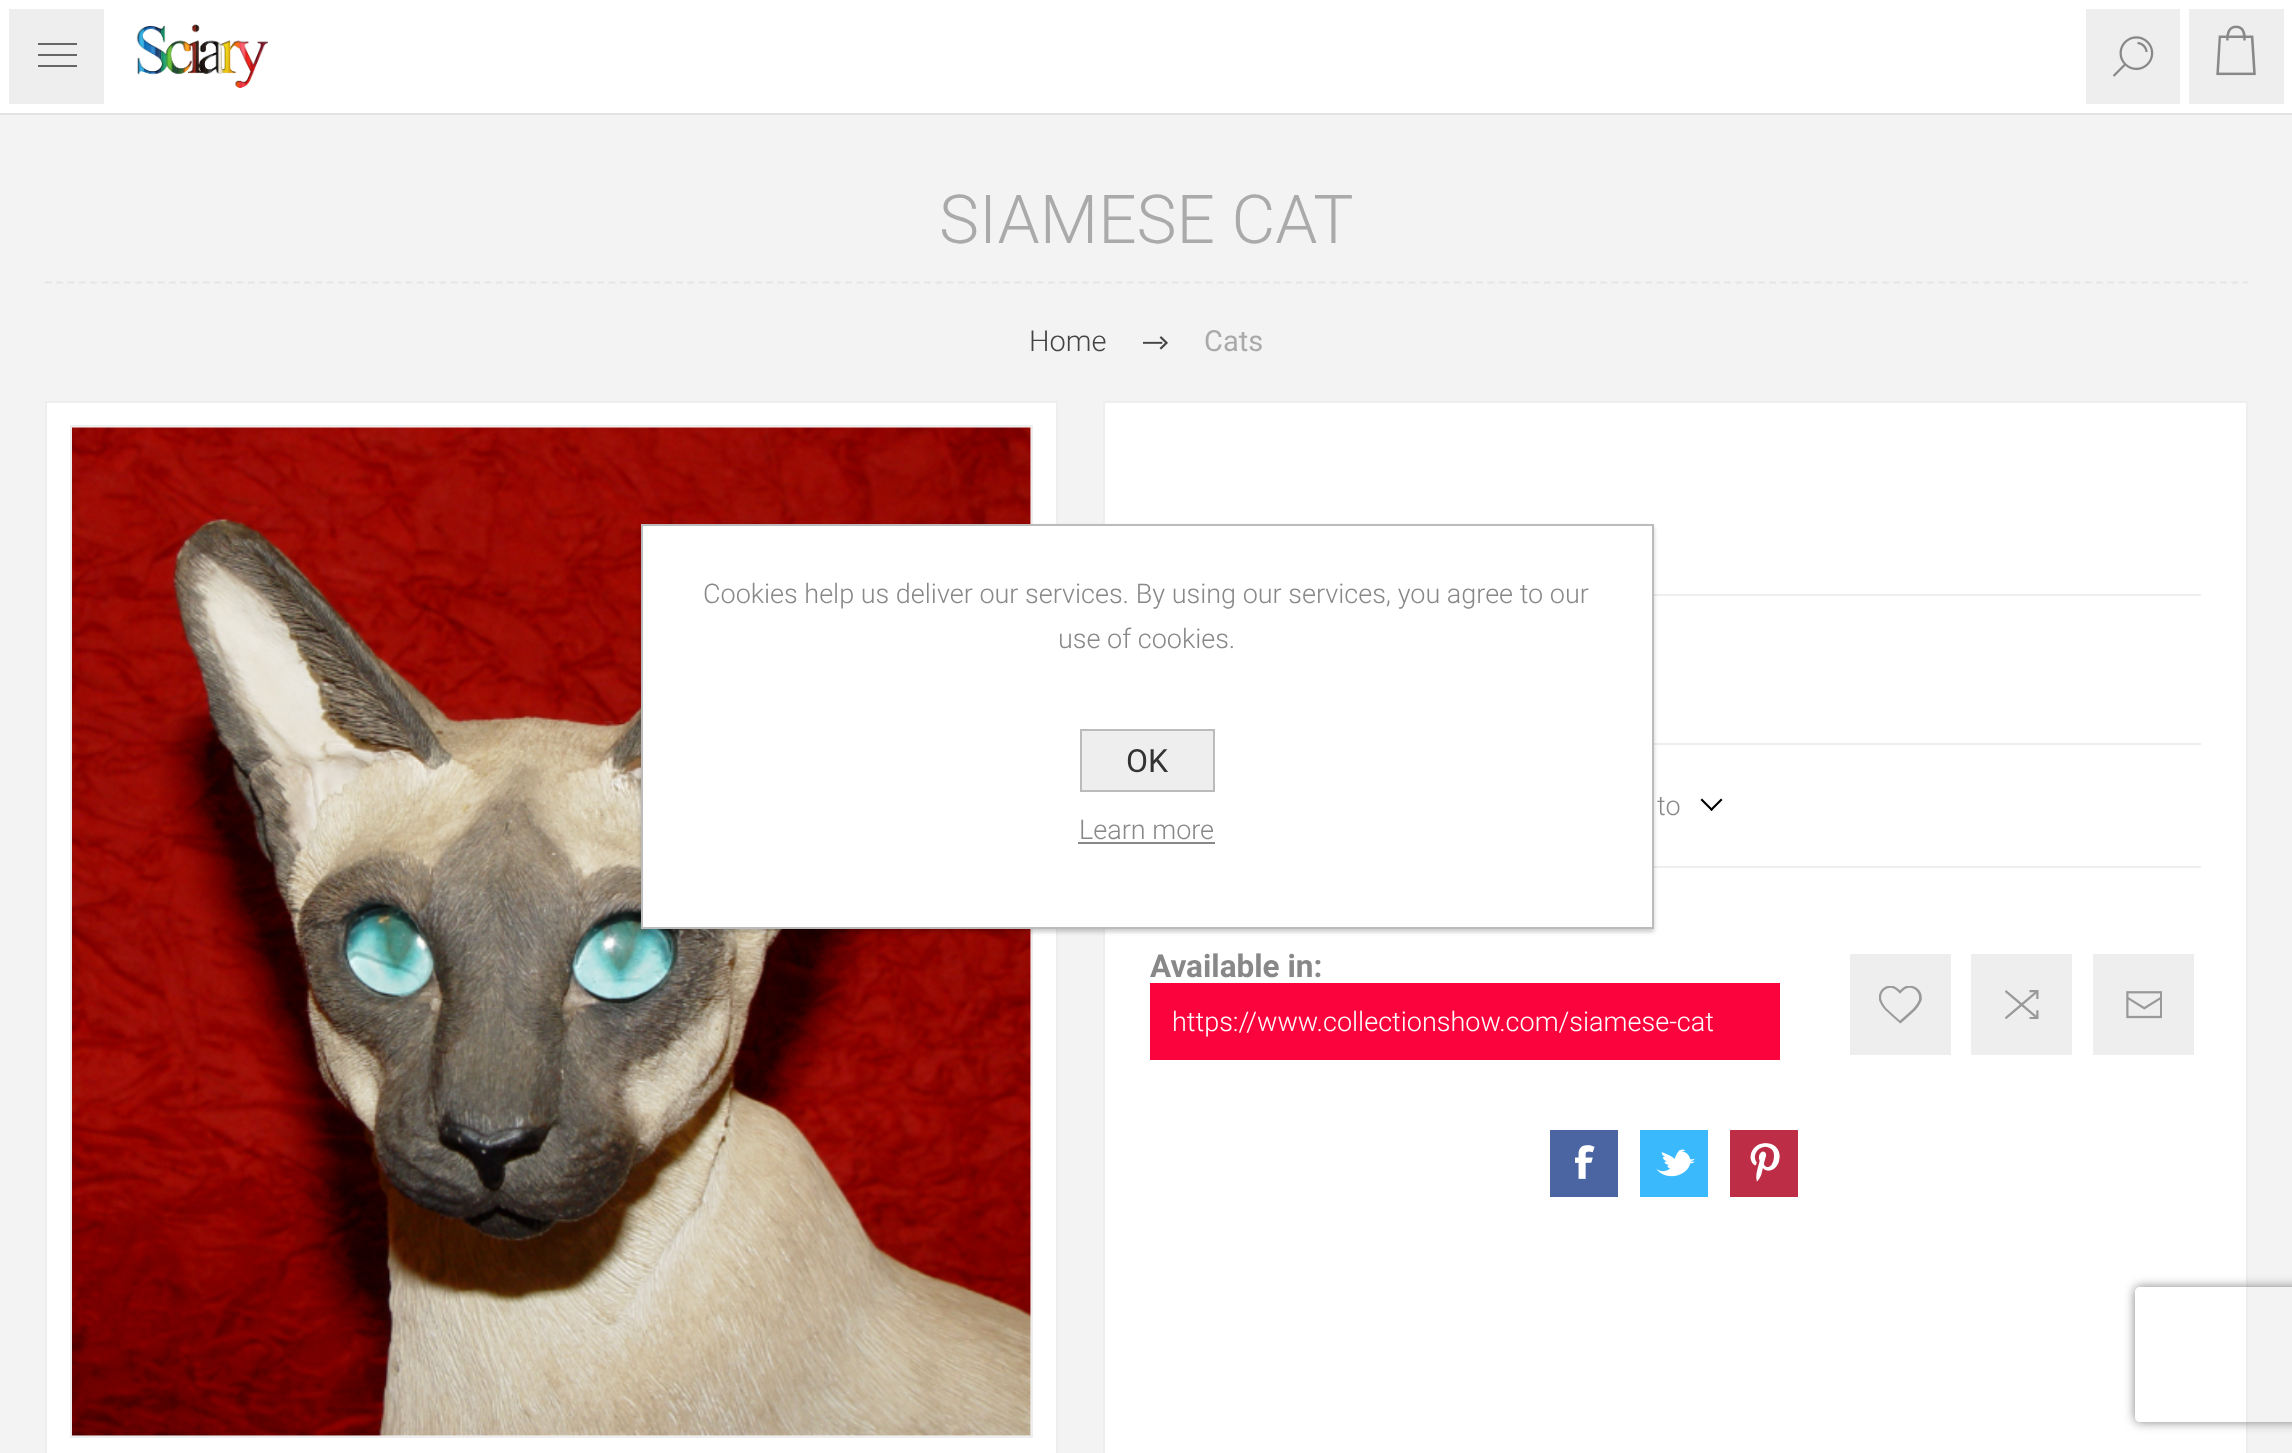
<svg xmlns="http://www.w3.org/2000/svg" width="2292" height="1453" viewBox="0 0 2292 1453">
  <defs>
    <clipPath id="clip1"><path d="M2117 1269H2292V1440H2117ZM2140 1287H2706C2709 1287 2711 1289 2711 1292V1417C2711 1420 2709 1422 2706 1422H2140C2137 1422 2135 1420 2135 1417V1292C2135 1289 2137 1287 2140 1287Z" clip-rule="evenodd"/></clipPath>
  </defs>
  <rect width="100%" height="100%" fill="#f3f3f3"/>
  <path d="M0 112V115H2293V2V112Z" fill="#e3e3e3"/>
  <path d="M113 0h2067v113H113z" fill="#fff"/>
  <image x="136" y="24" width="132" height="64" href="img/1.png"/>
  <path d="M2086 9h94v95H2086z" fill="#eee"/>
  <image x="2112" y="36" width="42" height="41" href="img/2.png"/>
  <path d="M4.5 4.5h104v104H4.5z" fill="#eee" stroke="#fff" stroke-width="9"/>
  <path d="M38 43h39v2H38z" fill="#666"/>
  <path d="M38 54h39v2H38z" fill="#666"/>
  <path d="M38 65h39v2H38z" fill="#666"/>
  <path d="M2184.5 4.5h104v104H2184.5z" fill="#eee" stroke="#fff" stroke-width="9"/>
  <image x="2216" y="25" width="40" height="51" href="img/3.png"/>
  <path d="M45 282.5H2248" fill="none" stroke="#e6e6e6" stroke-width="2.2" stroke-dasharray="6.75 4.52"/>
  <image x="1143" y="336" width="25" height="14" href="img/4.png"/>
  <path d="M46 402h1011v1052H46z" fill="#fff" stroke="#eee" stroke-width="2"/>
  <path d="M71 426h961v1011H71z" fill="none" stroke="#eee" stroke-width="2"/>
  <image x="72" y="427" width="959" height="1009" href="img/5.png"/>
  <path d="M1104 402h1143v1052H1104z" fill="#fff" stroke="#eee" stroke-width="2"/>
  <path d="M1654 594h547v2H1654z" fill="#eee"/>
  <path d="M1654 743h547v2H1654z" fill="#eee"/>
  <path d="M1654 866h547v2H1654z" fill="#eee"/>
  <path d="M1721 798.5L1722.5 800L1711.5 811L1710 809.5Z" fill="#000"/>
  <path d="M1702 798.5L1713 809.5L1711.5 811L1700.5 800Z" fill="#000"/>
  <path d="M1850 954h101v101H1850z" fill="#eee"/>
  <image x="1879" y="986" width="43" height="38" href="img/6.png"/>
  <path d="M1971 954h101v101H1971z" fill="#eee"/>
  <image x="2005" y="990" width="34" height="29" href="img/7.png"/>
  <path d="M2093 954h101v101H2093z" fill="#eee"/>
  <image x="2126" y="991" width="36" height="28" href="img/8.png"/>
  <path d="M1150 983h630v77H1150z" fill="#fb043d"/>
  <path d="M1550 1130h68v67H1550z" fill="#4a65a2"/>
  <image x="1575" y="1145" width="20" height="34" href="img/9.png"/>
  <path d="M1640 1130h68v67H1640z" fill="#3abafd"/>
  <image x="1656" y="1149" width="39" height="28" href="img/10.png"/>
  <path d="M1730 1130h68v67H1730z" fill="#bd2d45"/>
  <image x="1750" y="1143" width="30" height="39" href="img/11.png"/>
  <path d="M641 527h1013v405H641z" fill="#00000033" filter="blur(2px)"/>
  <path d="M642 525h1011v403H642z" fill="#fff" stroke="#bbb" stroke-width="2"/>
  <path d="M1081 730h133v61H1081z" fill="#eee" stroke="#bbb" stroke-width="2"/>
  <path d="M1078 842h137v2H1078z" fill="#888"/>
  <g clip-path="url(#clip1)">
    <rect x="2135" y="1287" width="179" height="135" rx="5" fill="#808080" filter="blur(5.5px)"/>
  </g>
  <text x="939" y="243" font-family="Roboto" font-size="67.5" font-weight="300" fill="#aaa">SIAMESE CAT</text>
  <text x="1029" y="351" font-family="Roboto" font-size="29" font-weight="300" fill="#444">Home</text>
  <text x="1204" y="351" font-family="Roboto" font-size="29" fill="#aaa">Cats</text>
  <text x="1657" y="815" font-family="Roboto" font-size="27" font-weight="300" fill="#888">to</text>
  <text x="1150" y="977" font-family="Roboto" font-size="31.5" font-weight="bold" fill="#888">Available in:</text>
  <text x="1172" y="1031" font-family="Roboto" font-size="27" font-weight="300" fill="#fff">https://www.collectionshow.com/siamese-cat</text>
  <g font-family="Roboto" font-size="27" font-weight="300" fill="#888">
    <text x="703" y="603">Cookies help us deliver our services. By using our services, you agree to our</text>
    <text x="1058" y="648">use of cookies.</text>
  </g>
  <text x="1126" y="772" font-family="Roboto" font-size="32" fill="#333">OK</text>
  <text x="1079" y="839" font-family="Roboto" font-size="27" font-weight="300" fill="#888">Learn more</text>
</svg>
